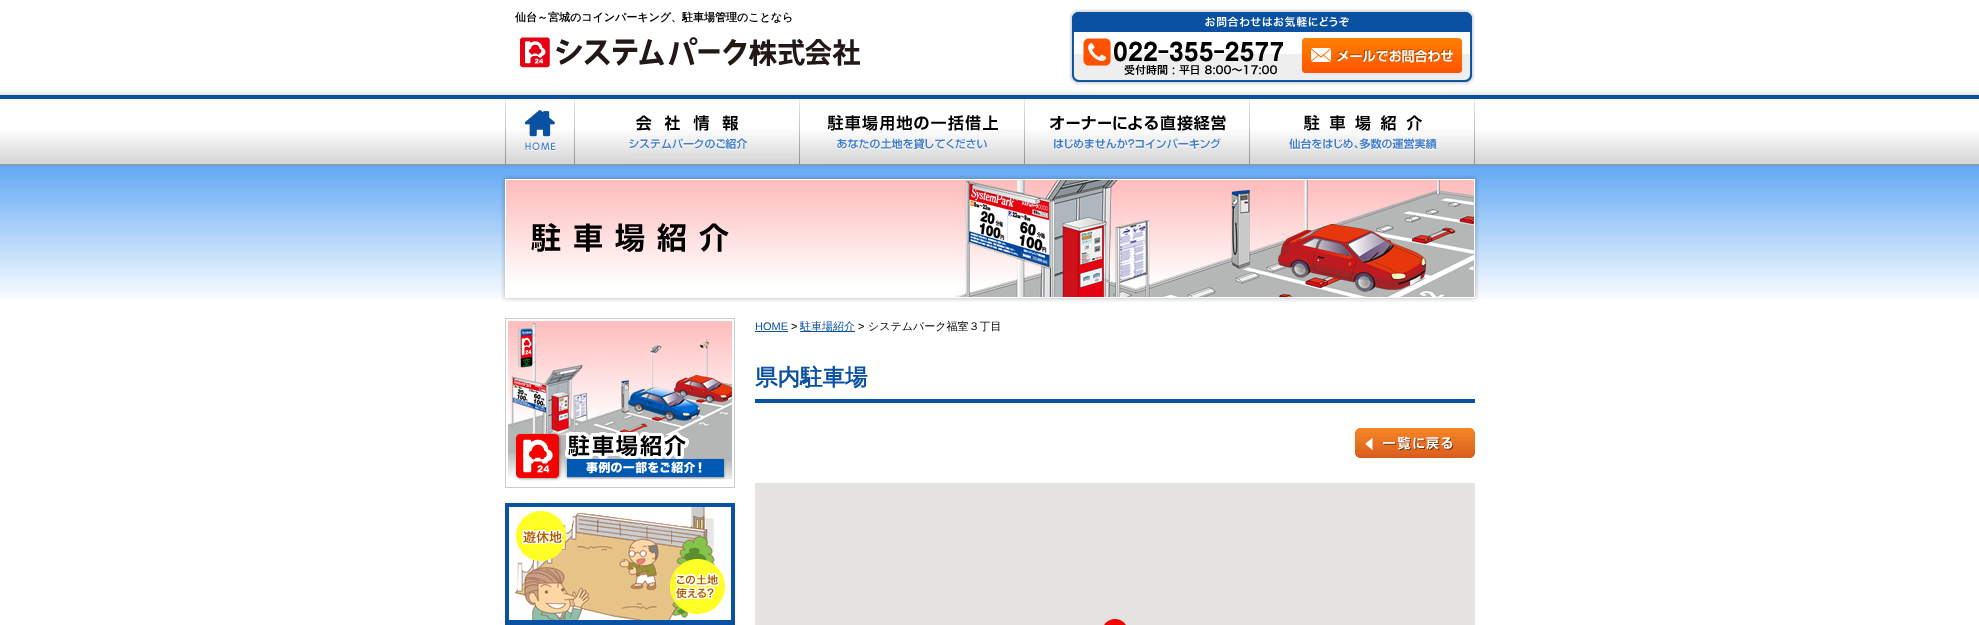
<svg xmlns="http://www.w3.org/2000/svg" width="1979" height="625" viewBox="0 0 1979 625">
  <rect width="100%" height="100%" fill="#fff"/>
  <image x="0" y="91" width="1979" height="4" href="img/1.png"/>
  <image x="520" y="37" width="340" height="31" href="img/2.png"/>
  <image x="1069" y="9" width="406" height="76" href="img/3.png"/>
  <image x="0" y="95" width="1979" height="70" href="img/4.png"/>
  <image x="505" y="99" width="70" height="65" href="img/5.png"/>
  <image x="629" y="99" width="171" height="65" href="img/6.png"/>
  <image x="827" y="99" width="198" height="65" href="img/7.png"/>
  <image x="1049" y="99" width="201" height="65" href="img/8.png"/>
  <image x="1289" y="99" width="186" height="65" href="img/9.png"/>
  <image x="0" y="165" width="1979" height="134" href="img/10.png"/>
  <image x="501" y="175" width="978" height="127" href="img/11.png"/>
  <image x="505" y="318" width="230" height="170" href="img/12.png"/>
  <image x="505" y="503" width="230" height="122" href="img/13.png"/>
  <path d="M755 331h33v1H755z" fill="#0a51a1"/>
  <path d="M800 331h55v1H800z" fill="#0a51a1"/>
  <path d="M755 399h720v4H755z" fill="#0a51a1"/>
  <image x="1355" y="428" width="120" height="30" href="img/14.png"/>
  <path d="M755 483h720v142H755z" fill="#e5e3df"/>
  <image x="1104" y="619" width="22" height="6" href="img/15.png"/>
  <text x="515" y="21" font-family="WenQuanYi Zen Hei" font-size="11" font-weight="bold" fill="#000">仙台～宮城のコインパーキング、駐車場管理のことなら</text>
  <text x="755" y="330" font-family="Liberation Sans" font-size="11" fill="#0a51a1">HOME</text>
  <text x="791" y="330" font-family="Liberation Sans" font-size="11" fill="#000">&gt;</text>
  <text x="800" y="330" font-family="WenQuanYi Zen Hei" font-size="11" font-weight="500" fill="#0a51a1">駐車場紹介</text>
  <text x="858" y="330" font-family="Liberation Sans" font-size="11" fill="#000">&gt;</text>
  <text x="868" y="330" font-family="WenQuanYi Zen Hei" font-size="11" font-weight="500" fill="#000">システムパーク福室３丁目</text>
  <text x="755" y="385" font-family="WenQuanYi Zen Hei" font-size="22.5" font-weight="bold" fill="#0a51a1">県内駐車場</text>
</svg>
